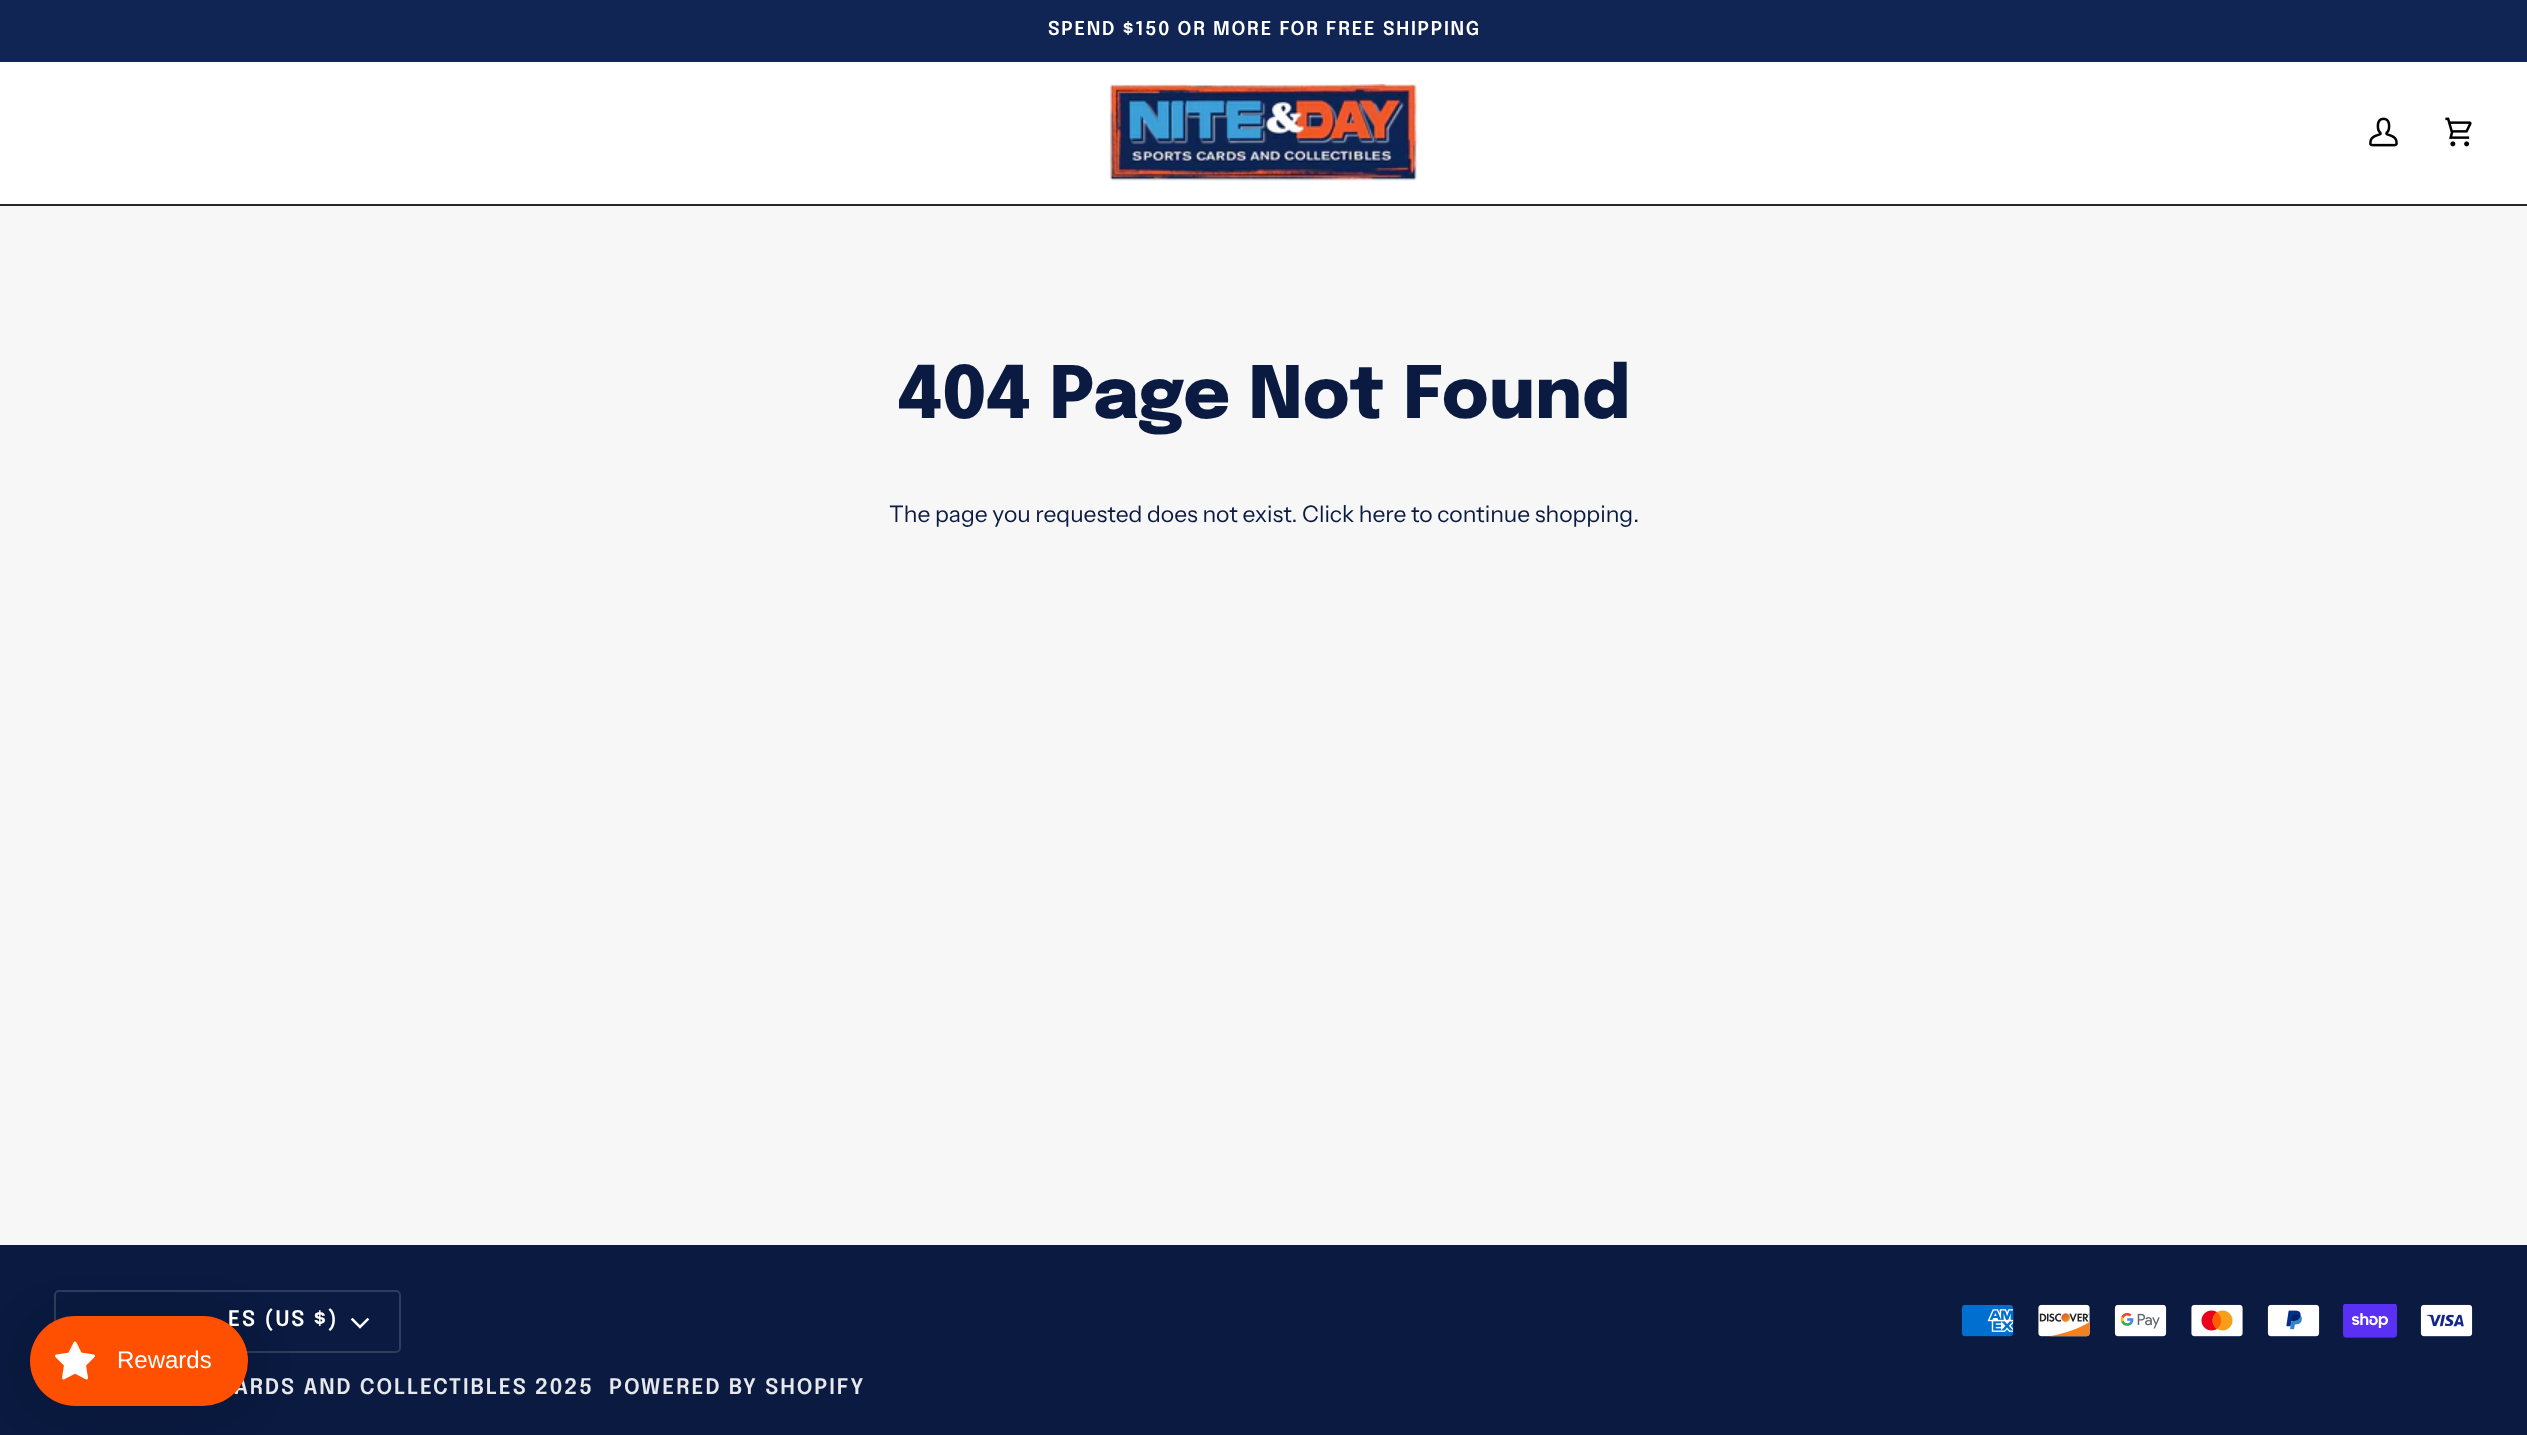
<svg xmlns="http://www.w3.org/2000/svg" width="2527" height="1435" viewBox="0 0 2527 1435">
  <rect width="100%" height="100%" fill="#fff"/>
  <path d="M0 0h2527v62H0z" fill="#112554"/>
  <path d="M0 204h2527v2H0z" fill="#282828"/>
  <image x="1110" y="84" width="308" height="97" href="img/1.png"/>
  <image x="2369" y="117" width="29" height="30" href="img/2.png"/>
  <image x="2445" y="117" width="27" height="30" href="img/3.png"/>
  <path d="M0 206h2527v1039H0z" fill="#f7f7f7"/>
  <path d="M0 1245h2527v190H0z" fill="#0a1a40"/>
  <rect x="55" y="1291" width="345" height="61" rx="4" fill="none" stroke="#2f3c5d" stroke-width="2"/>
  <rect x="30" y="1319" width="218" height="90" rx="45" fill="#00000026" filter="blur(22.5px)"/>
  <path d="M352.5 1319.5L360 1327L367.5 1319.5" fill="none" stroke="#fff" stroke-width="2.5" stroke-linecap="square"/>
  <image x="1961" y="1304" width="53" height="33" href="img/5.png"/>
  <image x="2037" y="1304" width="54" height="33" href="img/6.png"/>
  <image x="2114" y="1304" width="53" height="33" href="img/7.png"/>
  <image x="2190" y="1304" width="54" height="33" href="img/8.png"/>
  <image x="2267" y="1304" width="53" height="33" href="img/9.png"/>
  <image x="2343" y="1304" width="54" height="34" href="img/10.png"/>
  <image x="2420" y="1304" width="53" height="33" href="img/11.png"/>
  <text x="1048" y="35" font-family="Epilogue" font-size="19" font-weight="600" letter-spacing="1.7" fill="#fff">SPEND $150 OR MORE FOR FREE SHIPPING</text>
  <text x="898" y="418" font-family="Epilogue" font-size="72" font-weight="800" fill="#0a1a40">404 Page Not Found</text>
  <text x="889" y="522" font-family="Instrument Sans" font-size="22.85" fill="#0a1a40">The page you requested does not exist. Click here to continue shopping.</text>
  <text x="228" y="1326" font-family="Epilogue" font-size="21.5" font-weight="600" letter-spacing="1.9" fill="#fff">ES (US $)</text>
  <text x="234" y="1394" font-family="Epilogue" font-size="21.5" font-weight="600" letter-spacing="1.9" fill="#e7e8ec">ARDS AND COLLECTIBLES</text>
  <rect x="30" y="1316" width="218" height="90" rx="45" fill="#fe5000"/>
  <image x="55" y="1341" width="40" height="39" href="img/4.png"/>
  <text x="117" y="1368" font-family="Liberation Sans" font-size="24" fill="#fff">Rewards</text>
  <g font-family="Epilogue" font-size="21.5" font-weight="600" letter-spacing="1.9" fill="#e7e8ec">
    <text x="535" y="1394">2025</text>
    <text x="609" y="1394">POWERED BY SHOPIFY</text>
  </g>
</svg>
